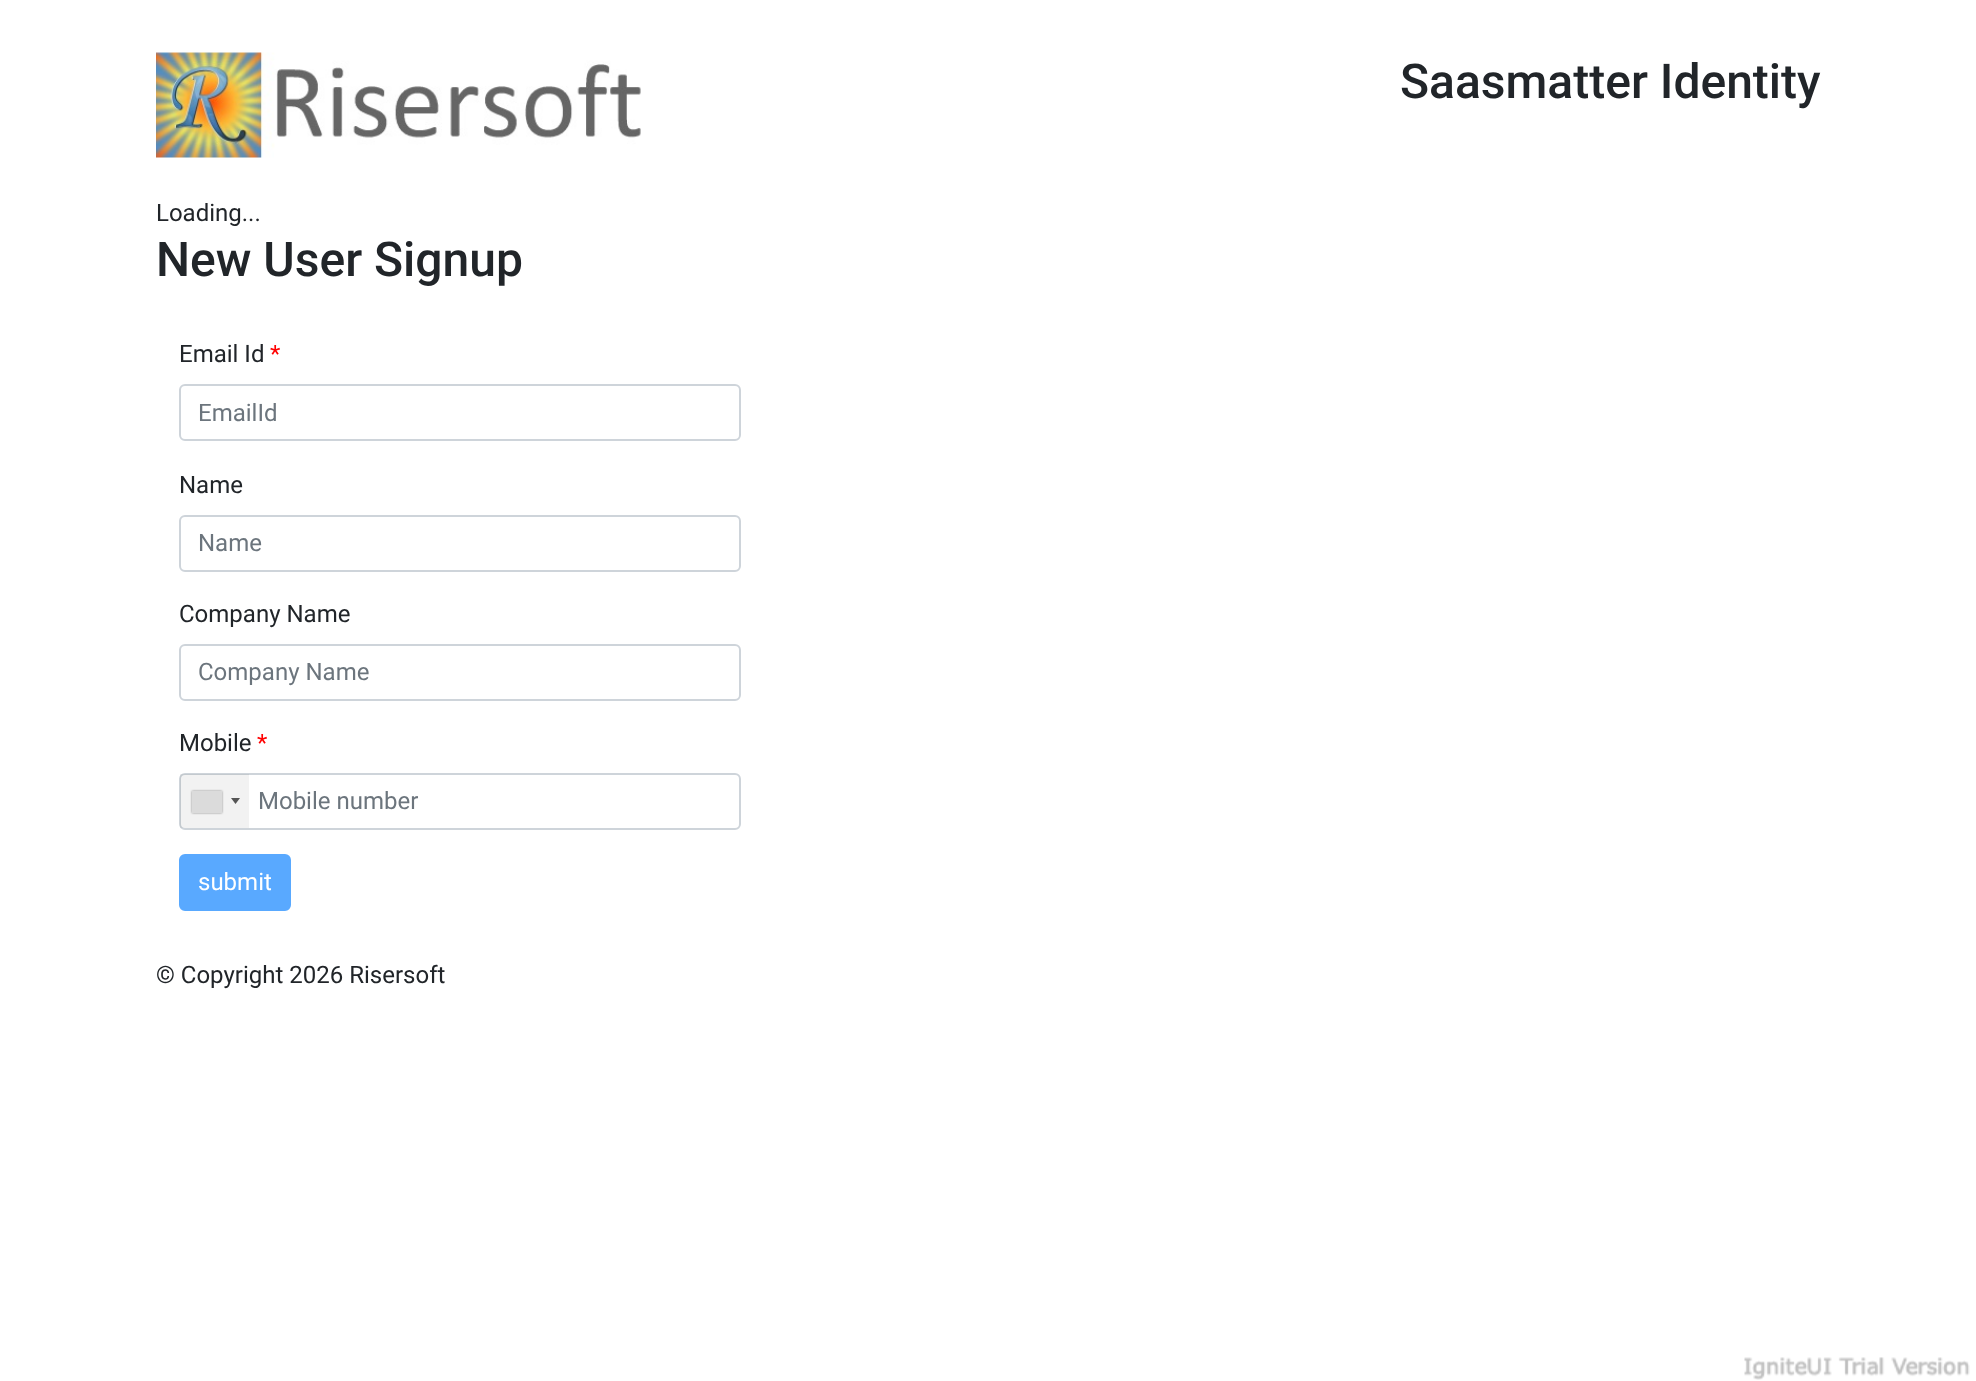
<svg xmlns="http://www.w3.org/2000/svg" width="1976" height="1381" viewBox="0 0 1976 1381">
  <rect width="100%" height="100%" fill="#fff"/>
  <image x="156" y="52" width="485" height="106" href="img/1.png"/>
  <rect x="180" y="385" width="560" height="55" rx="5" fill="none" stroke="#ced4da" stroke-width="2"/>
  <rect x="180" y="516" width="560" height="55" rx="5" fill="none" stroke="#ced4da" stroke-width="2"/>
  <rect x="180" y="645" width="560" height="55" rx="5" fill="none" stroke="#ced4da" stroke-width="2"/>
  <rect x="180" y="774" width="560" height="55" rx="5" fill="none" stroke="#ced4da" stroke-width="2"/>
  <path d="M180 774h69v54H180z" fill="#0000000d"/>
  <path d="M192 791h30v22H192z" fill="#888" filter="blur(1px)"/>
  <path d="M192 791h30v22H192z" fill="#dbdbdb"/>
  <path d="M231 798H240L235.5 804Z" fill="#555"/>
  <rect x="180" y="855" width="110" height="55" rx="5" fill="#59a9ff" stroke="#59a9ff" stroke-width="2"/>
  <image x="1744" y="1357" width="226" height="23" href="img/2.png"/>
  <text x="1400" y="98" font-family="Roboto" font-size="48" font-weight="500" fill="#212529">Saasmatter Identity</text>
  <text x="156" y="221" font-family="Roboto" font-size="24" fill="#212529">Loading...</text>
  <text x="156" y="276" font-family="Roboto" font-size="48" font-weight="500" fill="#212529">New User Signup</text>
  <text x="179" y="362" font-family="Roboto" font-size="24" fill="#212529">Email Id</text>
  <text x="270" y="362" font-family="Roboto" font-size="24" fill="#f00">*</text>
  <text x="198" y="421" font-family="Roboto" font-size="24" fill="#6c757d">EmailId</text>
  <text x="179" y="493" font-family="Roboto" font-size="24" fill="#212529">Name</text>
  <text x="198" y="551" font-family="Roboto" font-size="24" fill="#6c757d">Name</text>
  <text x="179" y="622" font-family="Roboto" font-size="24" fill="#212529">Company Name</text>
  <text x="198" y="680" font-family="Roboto" font-size="24" fill="#6c757d">Company Name</text>
  <text x="179" y="751" font-family="Roboto" font-size="24" fill="#212529">Mobile</text>
  <text x="257" y="751" font-family="Roboto" font-size="24" fill="#f00">*</text>
  <text x="258" y="809" font-family="Roboto" font-size="24" fill="#6c757d">Mobile number</text>
  <text x="198" y="890" font-family="Roboto" font-size="24" fill="#fff">submit</text>
  <text x="156" y="983" font-family="Roboto" font-size="24" fill="#212529">© Copyright 2026 Risersoft</text>
</svg>
